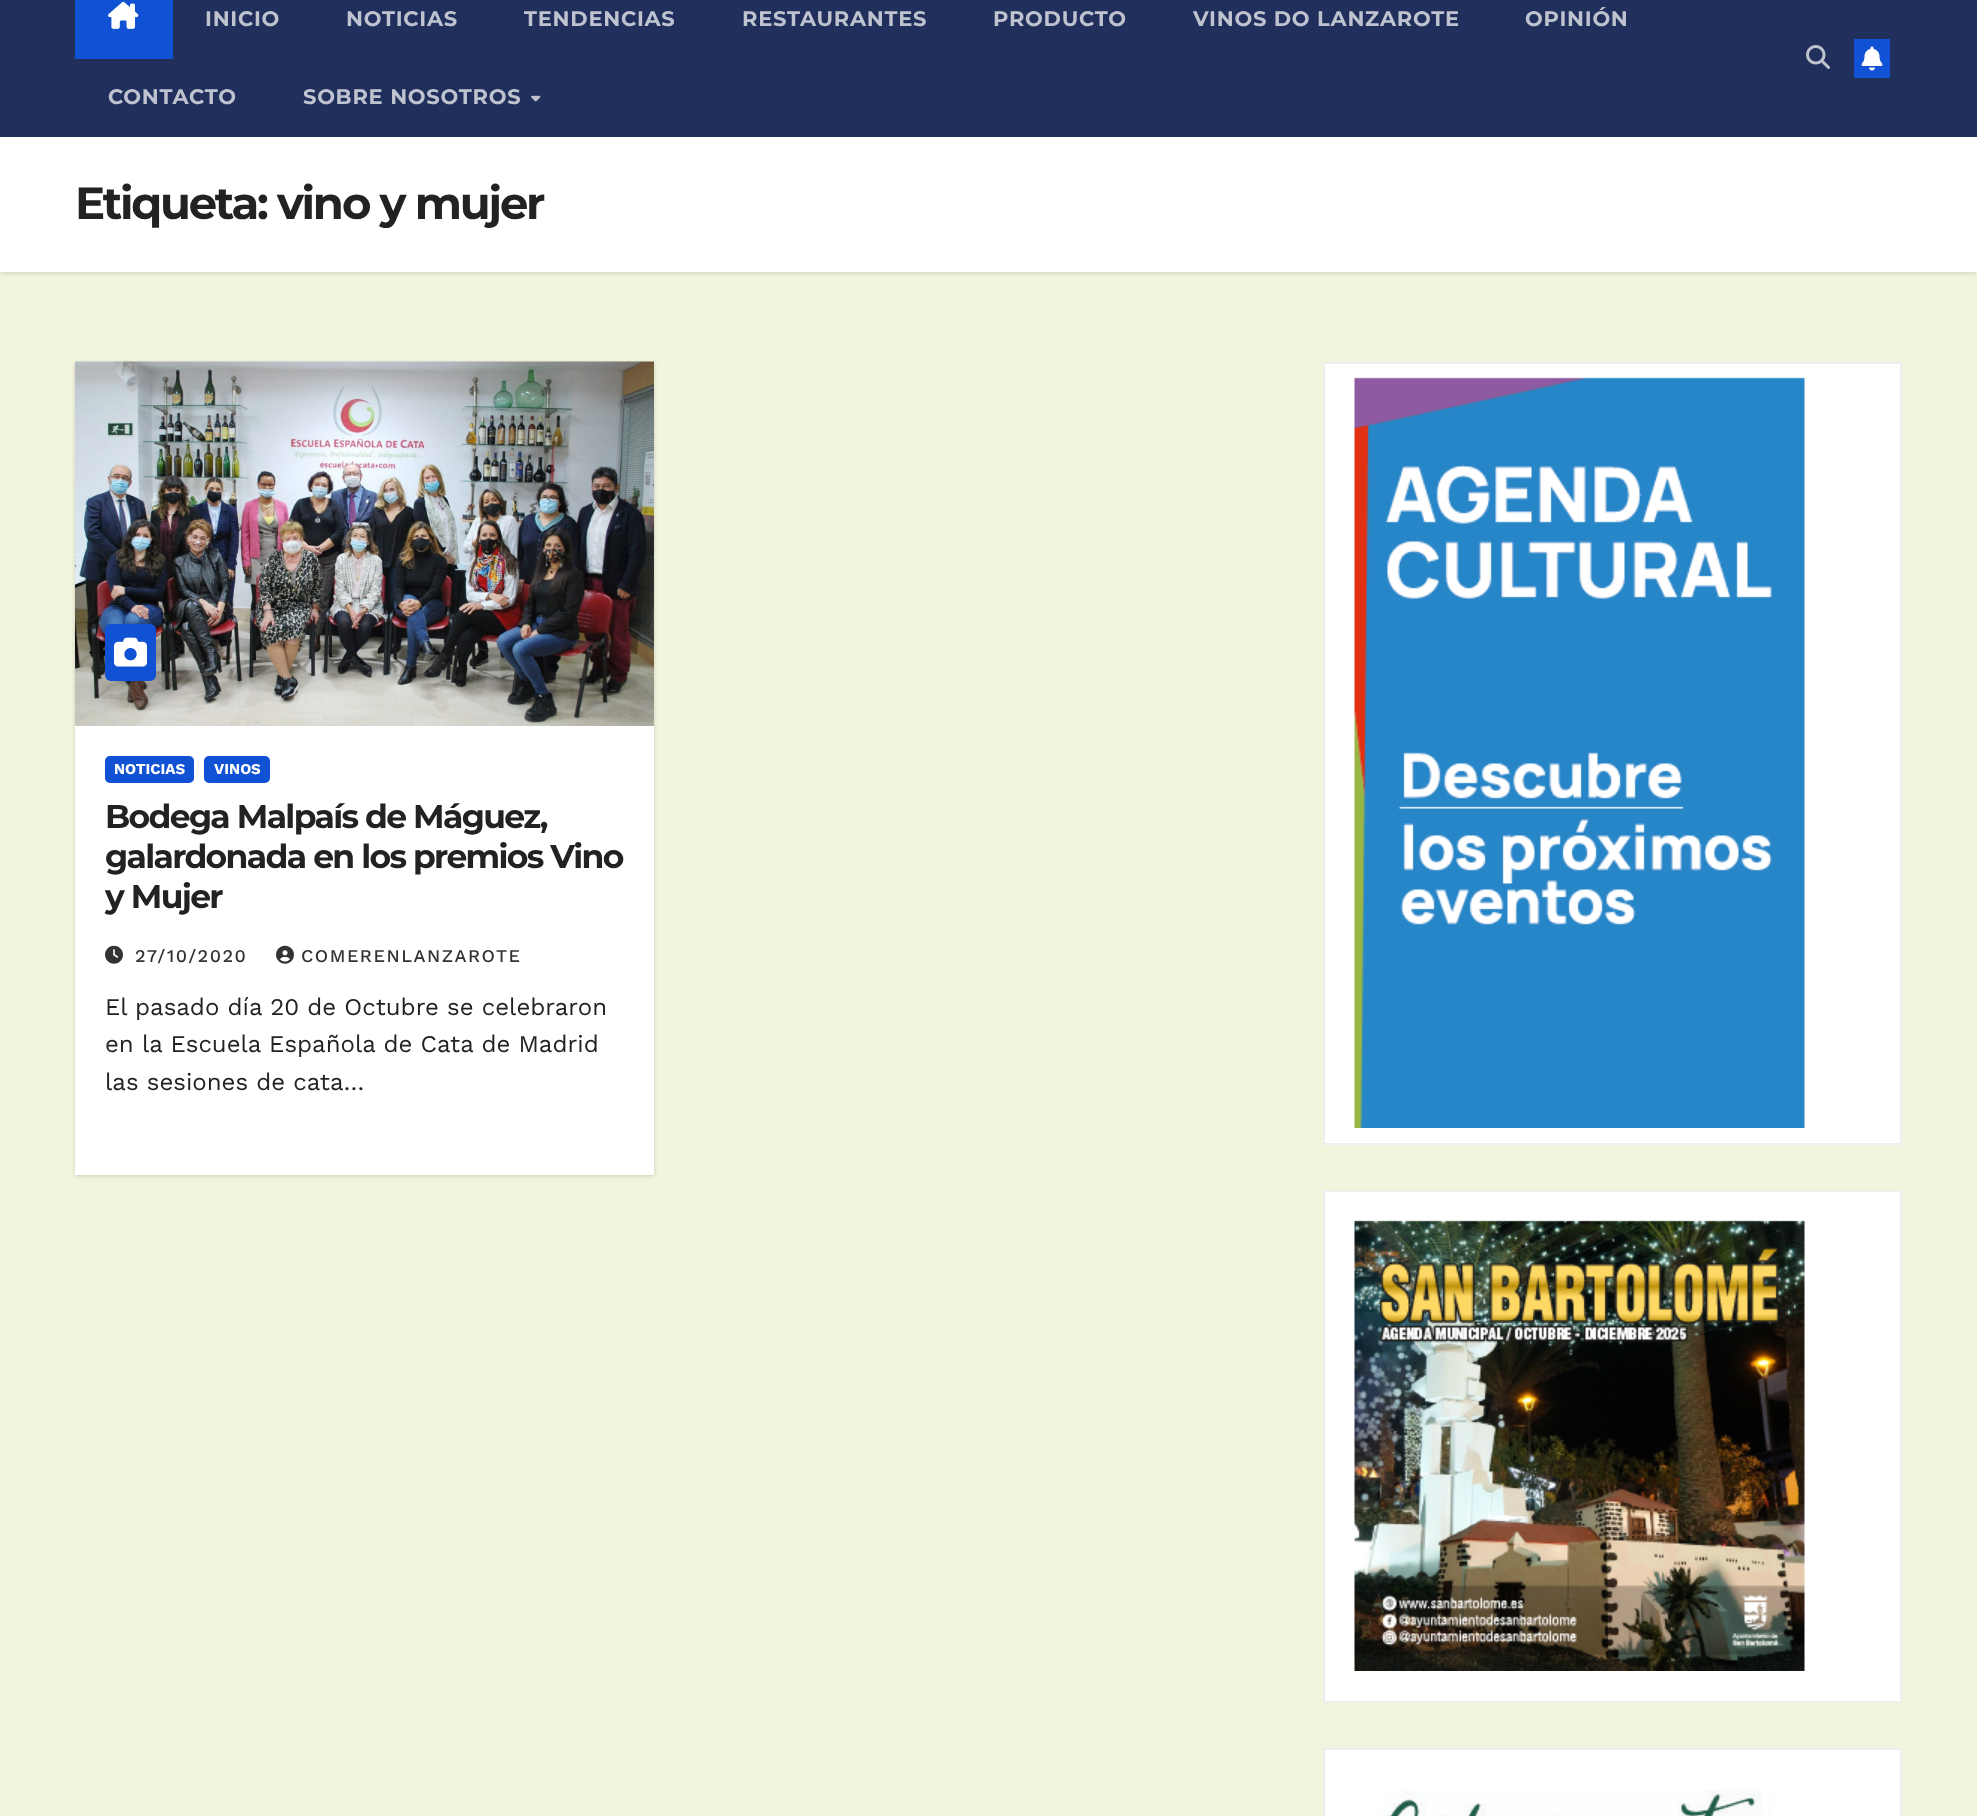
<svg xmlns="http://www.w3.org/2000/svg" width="1977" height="1816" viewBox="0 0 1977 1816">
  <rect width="100%" height="100%" fill="#f3f4de"/>
  <path d="M0 138h1977v135H0z" fill="#00000026" filter="blur(2px)"/>
  <path d="M0 0h1977v137H0z" fill="#202f5b"/>
  <path d="M75 0h98v59H75z" fill="#1151d3"/>
  <image x="108" y="1" width="31" height="28" href="img/1.png"/>
  <image x="531" y="95" width="10" height="7" href="img/2.png"/>
  <image x="1806" y="45" width="24" height="24" href="img/3.png"/>
  <path d="M1854 39h36v39H1854z" fill="#1151d3"/>
  <image x="1861" y="46" width="22" height="25" href="img/4.png"/>
  <path d="M0 137h1977v135H0z" fill="#fff"/>
  <path d="M75 363h579v813H75z" fill="#00000026" filter="blur(2px)"/>
  <path d="M75 726h579v449H75z" fill="#fff"/>
  <image x="75" y="361" width="579" height="365" href="img/5.png"/>
  <rect x="105" y="624" width="51" height="57" rx="6" fill="#1151d3"/>
  <image x="114" y="637" width="33" height="30" href="img/6.png"/>
  <rect x="105" y="756" width="89" height="27" rx="5" fill="#1151d3"/>
  <rect x="204" y="756" width="66" height="27" rx="5" fill="#1151d3"/>
  <image x="105" y="945" width="18" height="19" href="img/7.png"/>
  <image x="276" y="945" width="18" height="19" href="img/8.png"/>
  <path d="M1324 363h577v781H1324z" fill="#fff" stroke="#eee" stroke-width="2"/>
  <image x="1354" y="377" width="451" height="751" href="img/9.png"/>
  <path d="M1324 1191h577v511H1324z" fill="#fff" stroke="#eee" stroke-width="2"/>
  <image x="1354" y="1220" width="451" height="451" href="img/10.png"/>
  <path d="M1324 1749h577v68H1324z" fill="#fff" stroke="#eee" stroke-width="2"/>
  <image x="1380" y="1790" width="393" height="26" href="img/11.png"/>
  <g font-family="Montserrat" font-size="21" font-weight="bold" letter-spacing="0.75" fill="#bec3cf">
    <text x="205" y="26">INICIO</text>
    <text x="346" y="26">NOTICIAS</text>
    <text x="524" y="26">TENDENCIAS</text>
    <text x="742" y="26">RESTAURANTES</text>
    <text x="993" y="26">PRODUCTO</text>
    <text x="1193" y="26">VINOS DO LANZAROTE</text>
    <text x="1525" y="26">OPINIÓN</text>
    <text x="108" y="104">CONTACTO</text>
    <text x="303" y="104">SOBRE NOSOTROS</text>
  </g>
  <text x="75" y="219" font-family="Montserrat" font-size="45" font-weight="bold" letter-spacing="-2.25" fill="#222">Etiqueta: vino y mujer</text>
  <g font-family="Work Sans" font-size="15" font-weight="bold" fill="#fff">
    <text x="114" y="774">NOTICIAS</text>
    <text x="214" y="774">VINOS</text>
  </g>
  <g font-family="Montserrat" font-size="33" font-weight="bold" letter-spacing="-1.65" fill="#222">
    <text x="105" y="828">Bodega Malpaís de Máguez,</text>
    <text x="105" y="868">galardonada en los premios Vino</text>
    <text x="105" y="908">y Mujer</text>
  </g>
  <g font-family="Work Sans" font-size="18" font-weight="500" letter-spacing="1.5" fill="#333">
    <text x="135" y="962">27/10/2020</text>
    <text x="301" y="962">COMERENLANZAROTE</text>
  </g>
  <g font-family="Work Sans" font-size="24" fill="#222">
    <text x="105" y="1015">El pasado día 20 de Octubre se celebraron</text>
    <text x="105" y="1052">en la Escuela Española de Cata de Madrid</text>
    <text x="105" y="1090">las sesiones de cata…</text>
  </g>
</svg>
